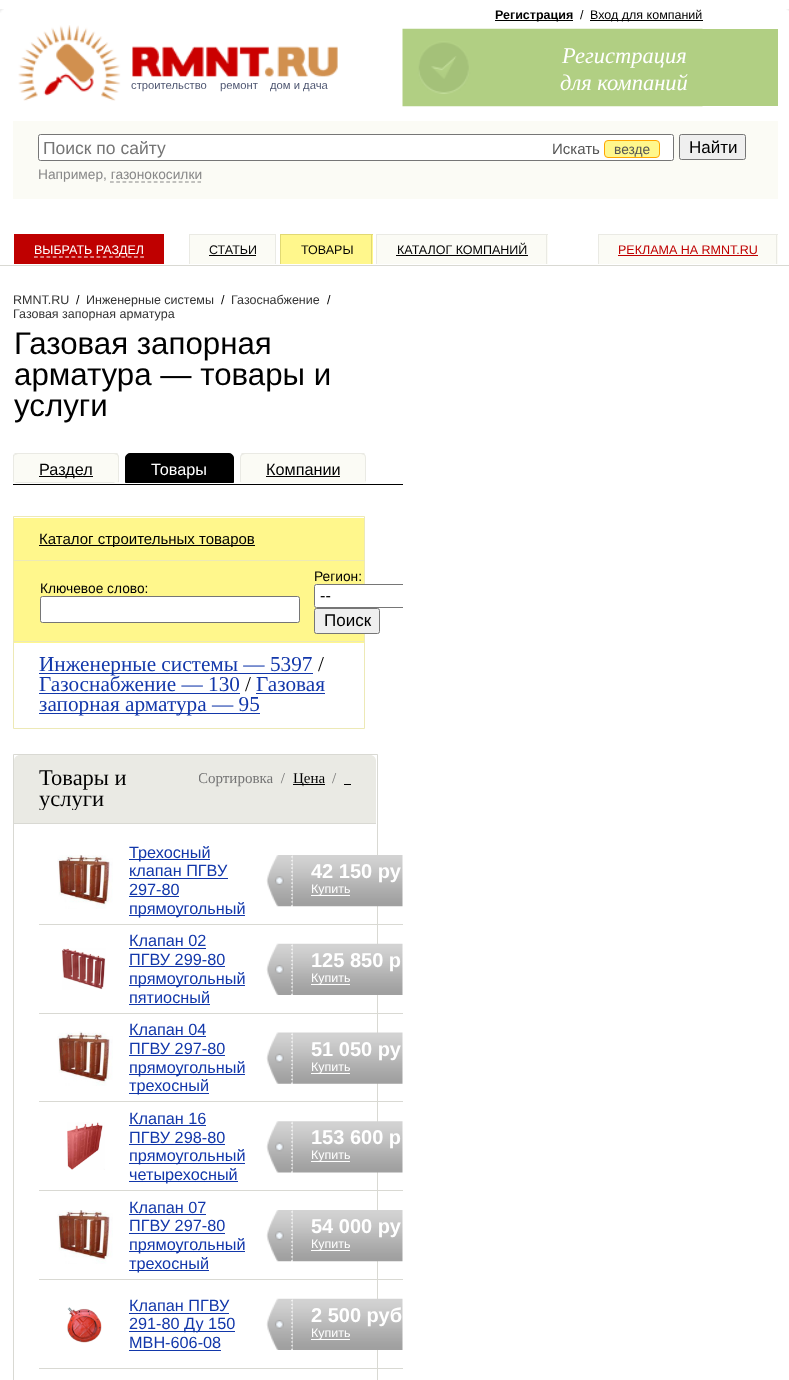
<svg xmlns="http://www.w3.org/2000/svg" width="789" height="1380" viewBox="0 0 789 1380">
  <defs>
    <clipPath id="clip1"><path d="M13 453h365v30H13z"/></clipPath>
    <clipPath id="clip2"><path d="M13 280h390v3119H13z"/></clipPath>
    <clipPath id="clip3"><path d="M39 768h154v42H39z"/></clipPath>
    <clipPath id="clip4"><path d="M199 768h152v21H199z"/></clipPath>
  </defs>
  <rect width="100%" height="100%" fill="#fff"/>
  <image x="0" y="9" width="4" height="4" href="img/1.png"/>
  <image x="18" y="25" width="320" height="76" href="img/2.png"/>
  <path d="M495 20h78v1H495z" fill="#000"/>
  <path d="M590 20h113v1H590z" fill="#000"/>
  <path d="M702 29h76v77H702z" fill="#b1cf83"/>
  <image x="402" y="28" width="301" height="79" href="img/3.png"/>
  <path d="M13 121h765v78H13z" fill="#fbfbf5"/>
  <rect x="38.5" y="134.5" width="635" height="26" rx="2" fill="#fff" stroke="#767676"/>
  <rect x="604.5" y="140.5" width="55" height="17" rx="3.5" fill="#fff78c" stroke="#ffa500"/>
  <rect x="679.5" y="134.5" width="66" height="25" rx="2" fill="#efefef" stroke="#767676"/>
  <path d="M110 182H201" fill="none" stroke="#888" stroke-width="1.2" stroke-dasharray="3.75 2.5"/>
  <path d="M0 265h789v1H0z" fill="#d9d9d3"/>
  <path d="M14 234h150v30H14z" fill="#bf0000"/>
  <path d="M34 257H144" fill="none" stroke="#fff" stroke-width="1.2" stroke-dasharray="3.75 2.5"/>
  <path d="M190 235h85v29H190z" fill="#fbfbf5"/>
  <path d="M189 234h87v1H189z" fill="#eaeae4"/>
  <path d="M275 234h1v30H275z" fill="#eaeae4"/>
  <path d="M189 234h1v30H189z" fill="#eaeae4"/>
  <path d="M209 255h47v1H209z" fill="#000"/>
  <path d="M281 235h92v29H281z" fill="#fff78c"/>
  <path d="M280 234h93v1H280z" fill="#e1d974"/>
  <path d="M371 234h1v30H371z" fill="#e1d974"/>
  <path d="M280 234h1v30H280z" fill="#e1d974"/>
  <path d="M377 235h171v29H377z" fill="#fbfbf5"/>
  <path d="M376 234h172v1H376z" fill="#eaeae4"/>
  <path d="M546 234h1v30H546z" fill="#eaeae4"/>
  <path d="M376 234h1v30H376z" fill="#eaeae4"/>
  <path d="M396 255h132v1H396z" fill="#000"/>
  <path d="M599 235h179v29H599z" fill="#fbfbf5"/>
  <path d="M598 234h180v1H598z" fill="#eaeae4"/>
  <path d="M776 234h1v30H776z" fill="#eaeae4"/>
  <path d="M598 234h1v30H598z" fill="#eaeae4"/>
  <path d="M618 255h140v1H618z" fill="#bf0000"/>
  <path d="M13 484h390v1H13z" fill="#000"/>
  <path d="M18 453H114C117 453 119 455 119 458V483H13V458C13 455 15 453 18 453Z" fill="#fbfbf5"/>
  <g clip-path="url(#clip1)">
    <path d="M18 454L15 455L14 454L16 452H116L118 454L117 455L114 454Z" fill="#eaeae4"/>
  </g>
  <path d="M119 482H118L117 481H118V458C118 456.5 117.5 455.5 116.5 454.5L117.5 453.5L119 456Z" fill="#eaeae4"/>
  <path d="M118 482H13L14 481H117Z" fill="#fbfbf5"/>
  <g clip-path="url(#clip1)">
    <path d="M12.5 456L14 454L15 455C14 455.5 14 456.5 14 458V481L13 482H12.5Z" fill="#eaeae4"/>
  </g>
  <path d="M39 476h54v1H39z" fill="#000"/>
  <path d="M130 453.5H229C231.5 453.5 233.5 455.5 233.5 458V482.5H125.5V458C125.5 455.5 127.5 453.5 130 453.5Z" fill="#000" stroke="#000"/>
  <path d="M245 453H361C364 453 366 455 366 458V483H240V458C240 455 242 453 245 453Z" fill="#fbfbf5"/>
  <g clip-path="url(#clip1)">
    <path d="M245 454L242 455L241 454L243 452H343C344 452 360 448 365 454L364 455L361 454Z" fill="#eaeae4"/>
  </g>
  <path d="M364.5 454C365.5 455 366 456.5 366 458V482L365 481V458C365 456.5 364.5 455.5 364 455Z" fill="#eaeae4"/>
  <path d="M366 482H240L242 481H365Z" fill="#fbfbf5"/>
  <path d="M240 458V482H240.5L241.5 481H241V458C241 456.5 241.5 455.5 242.5 455L241.5 454C240.5 455 240 456.5 240 458Z" fill="#eaeae4"/>
  <path d="M266 476h74v1H266z" fill="#000"/>
  <g clip-path="url(#clip1)">
    <path d="M18 484L15 485L14 484L16 482H114L116 484L115 485L112 484Z" fill="#eaeae4"/>
  </g>
  <path d="M13.5 516.5h351v212H13.5z" fill="none" stroke="#ede9b6"/>
  <path d="M14 518h350v42H14z" fill="#fff78c"/>
  <path d="M14 560h350v1H14z" fill="#ede9b6"/>
  <path d="M39 545h216v1H39z" fill="#000"/>
  <path d="M14 561h350v82H14z" fill="#fff78c"/>
  <path d="M14 641h350v1H14z" fill="#ede9b6"/>
  <rect x="40.5" y="596.5" width="259" height="26" rx="2" fill="#fff" stroke="#767676"/>
  <path d="M316.5 584H403V608H316.5C315 608 314 607 314 605.5V586.5C314 585 315 584 316.5 584Z" fill="#fff"/>
  <g clip-path="url(#clip2)">
    <rect x="314.5" y="584.5" width="249" height="23" rx="2" fill="none" stroke="#767676"/>
  </g>
  <rect x="314.5" y="608.5" width="65" height="25" rx="2" fill="#efefef" stroke="#767676"/>
  <path d="M39 673h274v1H39z" fill="#1237aa"/>
  <path d="M39 693h201v1H39z" fill="#1237aa"/>
  <path d="M256 693h69v1H256z" fill="#1237aa"/>
  <path d="M39 713h221v1H39z" fill="#1237aa"/>
  <path d="M13.5 754.5h364v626H13.5z" fill="none" stroke="#d9d9d3"/>
  <path d="M20 755H370C373.5 755 376 757.5 376 761V824H14V761C14 757.5 16.5 755 20 755Z" fill="#eaeae4"/>
  <path d="M14 823h362v1H14z" fill="#d9d9d3"/>
  <path d="M293 784h32v1H293z" fill="#000"/>
  <path d="M344 784h7v1H344z" fill="#000"/>
  <image x="57" y="855" width="56" height="54" href="img/4.png"/>
  <path d="M129 859h81v1H129z" fill="#1237aa"/>
  <path d="M129 878h99v1H129z" fill="#1237aa"/>
  <path d="M129 896h50v1H129z" fill="#1237aa"/>
  <path d="M129 915h116v1H129z" fill="#1237aa"/>
  <path d="M39 924h364v1H39z" fill="#d9d9d3"/>
  <image x="292" y="855" width="111" height="52" href="img/5.png"/>
  <image x="266" y="855" width="27" height="52" href="img/6.png"/>
  <path d="M311 895h39v1H311z" fill="#fff"/>
  <image x="62" y="948" width="44" height="42" href="img/7.png"/>
  <path d="M129 948h77v1H129z" fill="#1237aa"/>
  <path d="M129 966h96v1H129z" fill="#1237aa"/>
  <path d="M129 985h116v1H129z" fill="#1237aa"/>
  <path d="M129 1004h81v1H129z" fill="#1237aa"/>
  <path d="M39 1013h364v1H39z" fill="#d9d9d3"/>
  <image x="292" y="943" width="111" height="52" href="img/8.png"/>
  <image x="266" y="943" width="27" height="52" href="img/9.png"/>
  <path d="M311 984h39v1H311z" fill="#fff"/>
  <image x="57" y="1031" width="56" height="55" href="img/10.png"/>
  <path d="M129 1036h77v1H129z" fill="#1237aa"/>
  <path d="M129 1055h96v1H129z" fill="#1237aa"/>
  <path d="M129 1074h116v1H129z" fill="#1237aa"/>
  <path d="M129 1093h80v1H129z" fill="#1237aa"/>
  <path d="M39 1101h364v1H39z" fill="#d9d9d3"/>
  <image x="292" y="1032" width="111" height="52" href="img/11.png"/>
  <image x="266" y="1032" width="27" height="52" href="img/12.png"/>
  <path d="M311 1073h39v1H311z" fill="#fff"/>
  <image x="67" y="1122" width="38" height="48" href="img/13.png"/>
  <path d="M129 1125h77v1H129z" fill="#1237aa"/>
  <path d="M129 1144h96v1H129z" fill="#1237aa"/>
  <path d="M129 1163h116v1H129z" fill="#1237aa"/>
  <path d="M129 1181h109v1H129z" fill="#1237aa"/>
  <path d="M39 1190h364v1H39z" fill="#d9d9d3"/>
  <image x="292" y="1121" width="111" height="52" href="img/14.png"/>
  <image x="266" y="1121" width="27" height="52" href="img/15.png"/>
  <path d="M311 1161h39v1H311z" fill="#fff"/>
  <image x="57" y="1210" width="56" height="54" href="img/4.png"/>
  <path d="M129 1214h77v1H129z" fill="#1237aa"/>
  <path d="M129 1233h96v1H129z" fill="#1237aa"/>
  <path d="M129 1251h116v1H129z" fill="#1237aa"/>
  <path d="M129 1270h80v1H129z" fill="#1237aa"/>
  <path d="M39 1279h364v1H39z" fill="#d9d9d3"/>
  <image x="292" y="1210" width="111" height="52" href="img/5.png"/>
  <image x="266" y="1210" width="27" height="52" href="img/6.png"/>
  <path d="M311 1250h39v1H311z" fill="#fff"/>
  <image x="67" y="1307" width="35" height="36" href="img/16.png"/>
  <path d="M129 1313h100v1H129z" fill="#1237aa"/>
  <path d="M129 1331h106v1H129z" fill="#1237aa"/>
  <path d="M129 1350h92v1H129z" fill="#1237aa"/>
  <path d="M39 1368h364v1H39z" fill="#d9d9d3"/>
  <image x="292" y="1298" width="111" height="52" href="img/8.png"/>
  <image x="266" y="1298" width="27" height="52" href="img/9.png"/>
  <path d="M311 1339h39v1H311z" fill="#fff"/>
  <image x="786" y="9" width="3" height="2" href="img/17.png"/>
  <g font-family="Liberation Sans" font-size="11.25" fill="#4f5772">
    <text x="131" y="89">строительство</text>
    <text x="220" y="89">ремонт</text>
    <text x="270" y="89">дом и дача</text>
  </g>
  <text x="495" y="19" font-family="Liberation Sans" font-size="12.5" font-weight="bold" fill="#000">Регистрация</text>
  <g font-family="Liberation Sans" font-size="12.5" fill="#000">
    <text x="580" y="19">/</text>
    <text x="590" y="19">Вход для компаний</text>
  </g>
  <g font-family="Liberation Serif" font-size="22.5" font-style="italic" fill="#fff">
    <text x="562" y="63">Регистрация</text>
    <text x="560" y="90">для компаний</text>
  </g>
  <text x="43" y="154" font-family="Liberation Sans" font-size="17.5" fill="#757575">Поиск по сайту</text>
  <text x="552" y="154" font-family="Liberation Sans" font-size="15" fill="#555">Искать</text>
  <text x="614" y="154" font-family="Liberation Sans" font-size="13.75" fill="#555">везде</text>
  <text x="689" y="153" font-family="Liberation Sans" font-size="17" fill="#000">Найти</text>
  <text x="38" y="179" font-family="Liberation Sans" font-size="13.75" fill="#888">Например, газонокосилки</text>
  <text x="34" y="254" font-family="Liberation Sans" font-size="12.5" fill="#fff">ВЫБРАТЬ РАЗДЕЛ</text>
  <g font-family="Liberation Sans" font-size="12.5" fill="#000">
    <text x="209" y="254">СТАТЬИ</text>
    <text x="301" y="254">ТОВАРЫ</text>
    <text x="397" y="254">КАТАЛОГ КОМПАНИЙ</text>
  </g>
  <text x="618" y="254" font-family="Liberation Sans" font-size="12.5" fill="#bf0000">РЕКЛАМА НА RMNT.RU</text>
  <text x="13" y="304" font-family="Liberation Sans" font-size="12.5" fill="#333">RMNT.RU</text>
  <text x="76" y="304" font-family="Liberation Sans" font-size="12.5" fill="#000">/</text>
  <text x="86" y="304" font-family="Liberation Sans" font-size="12.5" fill="#333">Инженерные системы</text>
  <text x="221" y="304" font-family="Liberation Sans" font-size="12.5" fill="#000">/</text>
  <text x="231" y="304" font-family="Liberation Sans" font-size="12.5" fill="#333">Газоснабжение</text>
  <text x="327" y="304" font-family="Liberation Sans" font-size="12.5" fill="#000">/</text>
  <text x="13" y="318" font-family="Liberation Sans" font-size="12.5" fill="#333">Газовая запорная арматура</text>
  <g font-family="Liberation Sans" font-size="31.25" fill="#000">
    <text x="14" y="354">Газовая запорная</text>
    <text x="14" y="385">арматура — товары и</text>
    <text x="14" y="416">услуги</text>
  </g>
  <text x="39" y="475" font-family="Liberation Sans" font-size="16.25" fill="#000">Раздел</text>
  <text x="151" y="475" font-family="Liberation Sans" font-size="16.25" fill="#fff">Товары</text>
  <text x="266" y="475" font-family="Liberation Sans" font-size="16.25" fill="#000">Компании</text>
  <text x="39" y="544" font-family="Liberation Sans" font-size="15" fill="#000">Каталог строительных товаров</text>
  <g font-family="Liberation Sans" font-size="13.75" fill="#000">
    <text x="40" y="593">Ключевое слово:</text>
    <text x="314" y="581">Регион:</text>
  </g>
  <text x="320" y="601" font-family="Liberation Sans" font-size="16.25" fill="#000">--</text>
  <text x="324" y="626" font-family="Liberation Sans" font-size="17" fill="#000">Поиск</text>
  <text x="39" y="671" font-family="Liberation Serif" font-size="21.25" fill="#1237aa">Инженерные системы — 5397</text>
  <text x="318" y="671" font-family="Liberation Serif" font-size="21.25" fill="#000">/</text>
  <text x="39" y="691" font-family="Liberation Serif" font-size="21.25" fill="#1237aa">Газоснабжение — 130</text>
  <text x="245" y="691" font-family="Liberation Serif" font-size="21.25" fill="#000">/</text>
  <g font-family="Liberation Serif" font-size="21.25" fill="#1237aa">
    <text x="256" y="691">Газовая</text>
    <text x="39" y="711">запорная арматура — 95</text>
  </g>
  <text x="39" y="785" font-family="Liberation Serif" font-size="22.5" fill="#000">Товары и</text>
  <g clip-path="url(#clip3)">
    <text x="39" y="806" font-family="Liberation Serif" font-size="22.5" fill="#000">услуги</text>
  </g>
  <g clip-path="url(#clip4)">
    <text x="198" y="783" font-family="Liberation Serif" font-size="15" fill="#757575" xml:space="preserve">Сортировка  /</text>
  </g>
  <text x="293" y="783" font-family="Liberation Serif" font-size="15" fill="#000">Цена</text>
  <text x="332" y="783" font-family="Liberation Serif" font-size="15" fill="#757575">/</text>
  <g font-family="Liberation Sans" font-size="16.25" fill="#1237aa">
    <text x="129" y="858">Трехосный</text>
    <text x="129" y="876">клапан ПГВУ</text>
    <text x="129" y="895">297-80</text>
    <text x="129" y="914">прямоугольный</text>
  </g>
  <text x="311" y="878" font-family="Liberation Sans" font-size="20" font-weight="bold" fill="#fff">42 150 ру</text>
  <text x="311" y="893" font-family="Liberation Sans" font-size="12.5" fill="#fff">Купить</text>
  <g font-family="Liberation Sans" font-size="16.25" fill="#1237aa">
    <text x="129" y="946">Клапан 02</text>
    <text x="129" y="965">ПГВУ 299-80</text>
    <text x="129" y="984">прямоугольный</text>
    <text x="129" y="1003">пятиосный</text>
  </g>
  <text x="311" y="967" font-family="Liberation Sans" font-size="20" font-weight="bold" fill="#fff">125 850 р</text>
  <text x="311" y="982" font-family="Liberation Sans" font-size="12.5" fill="#fff">Купить</text>
  <g font-family="Liberation Sans" font-size="16.25" fill="#1237aa">
    <text x="129" y="1035">Клапан 04</text>
    <text x="129" y="1054">ПГВУ 297-80</text>
    <text x="129" y="1073">прямоугольный</text>
    <text x="129" y="1091">трехосный</text>
  </g>
  <text x="311" y="1056" font-family="Liberation Sans" font-size="20" font-weight="bold" fill="#fff">51 050 ру</text>
  <text x="311" y="1071" font-family="Liberation Sans" font-size="12.5" fill="#fff">Купить</text>
  <g font-family="Liberation Sans" font-size="16.25" fill="#1237aa">
    <text x="129" y="1124">Клапан 16</text>
    <text x="129" y="1143">ПГВУ 298-80</text>
    <text x="129" y="1161">прямоугольный</text>
    <text x="129" y="1180">четырехосный</text>
  </g>
  <text x="311" y="1144" font-family="Liberation Sans" font-size="20" font-weight="bold" fill="#fff">153 600 р</text>
  <text x="311" y="1159" font-family="Liberation Sans" font-size="12.5" fill="#fff">Купить</text>
  <g font-family="Liberation Sans" font-size="16.25" fill="#1237aa">
    <text x="129" y="1213">Клапан 07</text>
    <text x="129" y="1231">ПГВУ 297-80</text>
    <text x="129" y="1250">прямоугольный</text>
    <text x="129" y="1269">трехосный</text>
  </g>
  <text x="311" y="1233" font-family="Liberation Sans" font-size="20" font-weight="bold" fill="#fff">54 000 ру</text>
  <text x="311" y="1248" font-family="Liberation Sans" font-size="12.5" fill="#fff">Купить</text>
  <g font-family="Liberation Sans" font-size="16.25" fill="#1237aa">
    <text x="129" y="1311">Клапан ПГВУ</text>
    <text x="129" y="1329">291-80 Ду 150</text>
    <text x="129" y="1348">МВН-606-08</text>
  </g>
  <text x="311" y="1322" font-family="Liberation Sans" font-size="20" font-weight="bold" fill="#fff">2 500 руб</text>
  <text x="311" y="1337" font-family="Liberation Sans" font-size="12.5" fill="#fff">Купить</text>
</svg>
